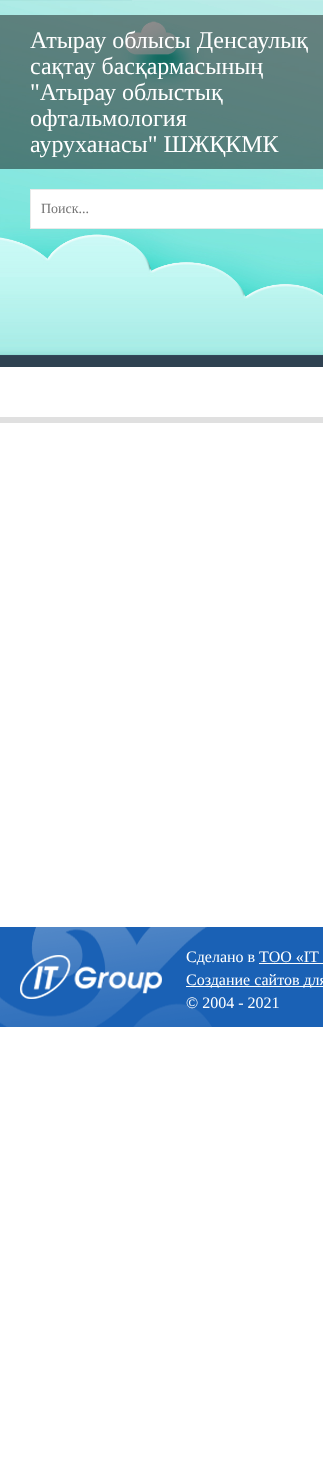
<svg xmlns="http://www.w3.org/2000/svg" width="323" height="1462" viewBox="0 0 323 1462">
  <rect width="100%" height="100%" fill="#fff"/>
  <image x="0" y="0" width="323" height="367" href="img/1.png"/>
  <path d="M0 15h323v154H0z" fill="#00000073"/>
  <path d="M31 190h292v38H31z" fill="#fff"/>
  <path d="M30 189h293v1H30z" fill="#e8eae9"/>
  <path d="M30 228h293v1H30z" fill="#e8eae9"/>
  <path d="M30 189h1v40H30z" fill="#e8eae9"/>
  <path d="M0 417h323v6H0z" fill="#e0e0e0"/>
  <path d="M0 927h323v100H0z" fill="#1a61b5"/>
  <image x="0" y="927" width="212" height="100" href="img/2.png"/>
  <image x="20" y="955" width="142" height="44" href="img/3.png"/>
  <path d="M259 963h64v1H259z" fill="#fff"/>
  <path d="M186 986h137v1H186z" fill="#fff"/>
  <g font-family="Liberation Serif" font-size="24" fill="#fff">
    <text x="30" y="48">Атырау облысы Денсаулық</text>
    <text x="30" y="74">сақтау басқармасының</text>
    <text x="30" y="100">"Атырау облыстық</text>
    <text x="30" y="126">офтальмология</text>
    <text x="30" y="152">ауруханасы" ШЖҚКМК</text>
  </g>
  <text x="41" y="213" font-family="Liberation Serif" font-size="14" fill="#757575">Поиск...</text>
  <g font-family="Liberation Serif" font-size="16" fill="#fff">
    <text x="186" y="962">Сделано в ТОО «IT</text>
    <text x="186" y="985">Создание сайтов для</text>
    <text x="186" y="1008">© 2004 - 2021</text>
  </g>
</svg>
